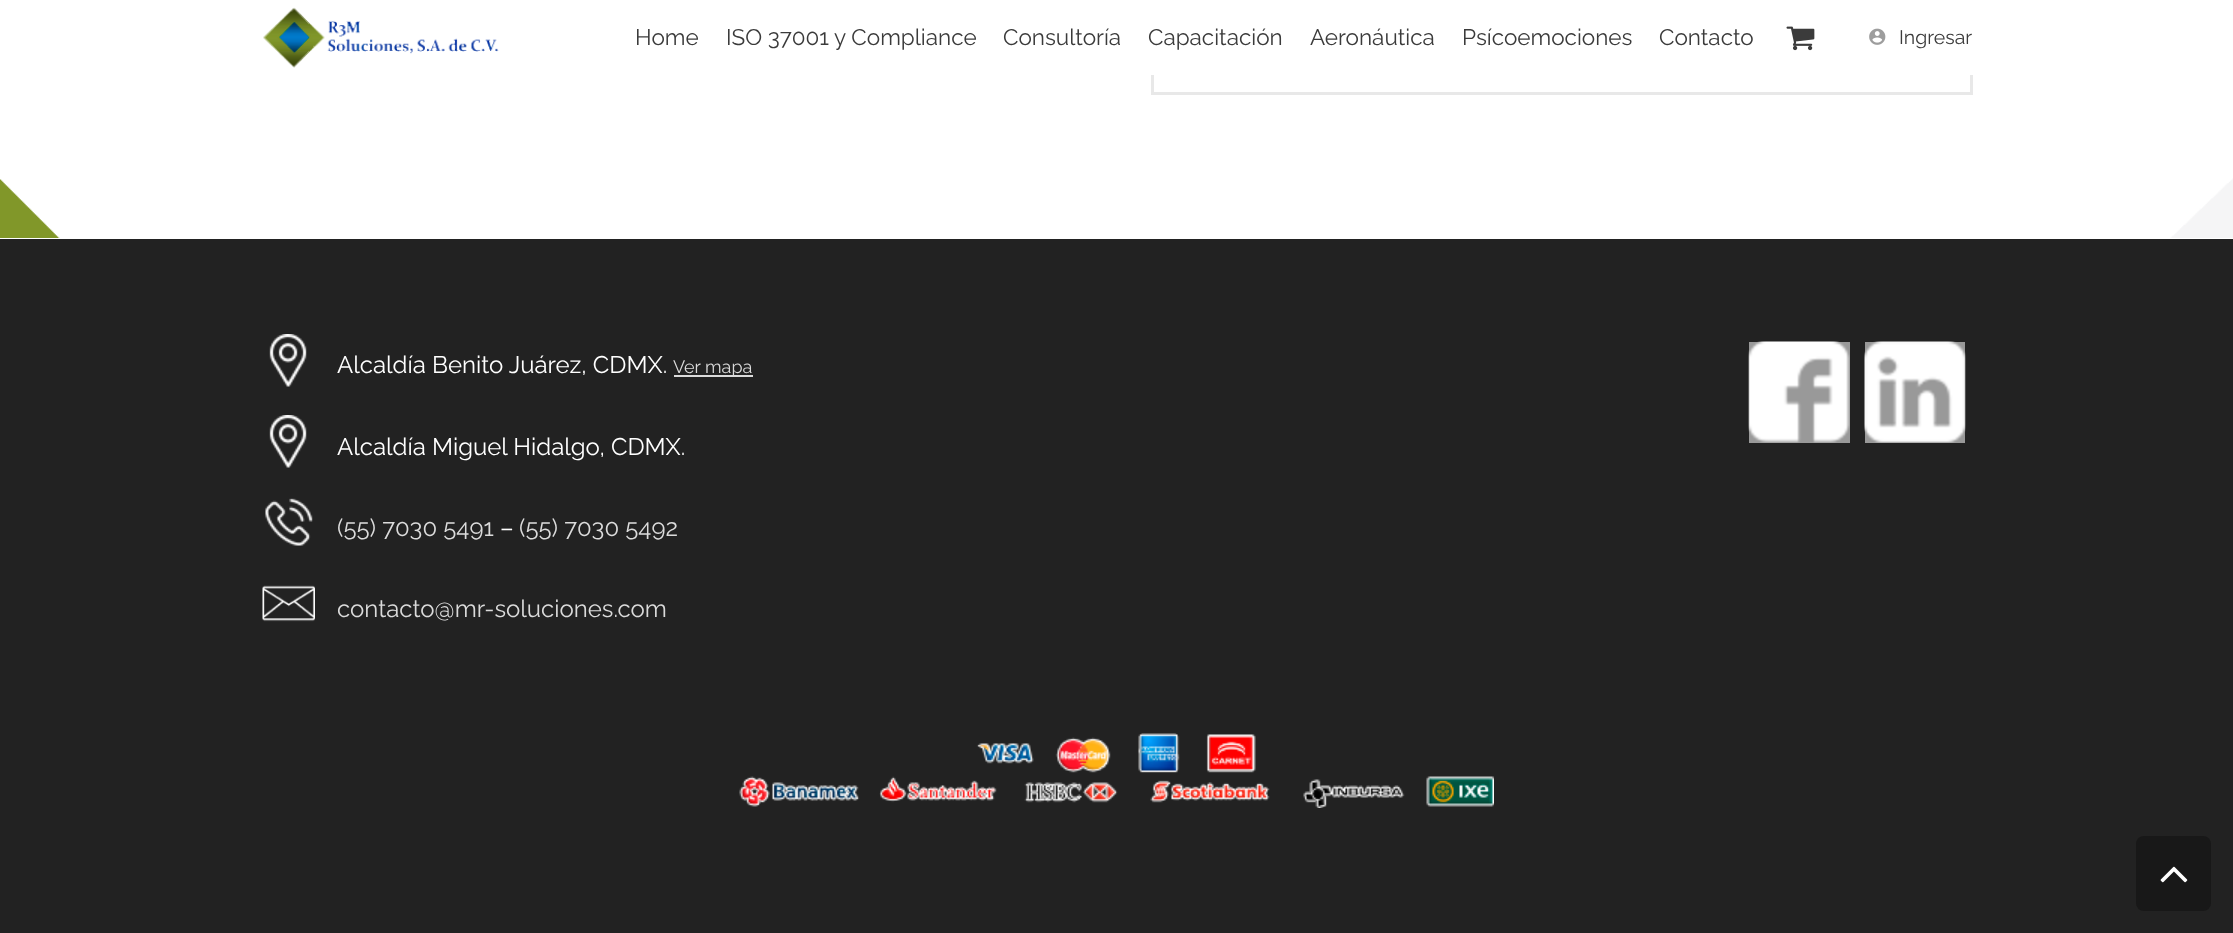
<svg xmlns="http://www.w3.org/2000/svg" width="2233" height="933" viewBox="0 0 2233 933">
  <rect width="100%" height="100%" fill="#fff"/>
  <image x="0" y="178" width="2233" height="60" href="img/1.png"/>
  <path d="M1152.5 -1.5h819v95H1152.5z" fill="none" stroke="#e8e8e8" stroke-width="3"/>
  <path d="M1151 0h822v75H1151z" fill="#fff"/>
  <image x="263" y="7" width="236" height="61" href="img/2.png"/>
  <image x="1786" y="26" width="29" height="25" href="img/3.png"/>
  <image x="1869" y="28" width="17" height="17" href="img/4.png"/>
  <path d="M0 239h2233v694H0z" fill="#222"/>
  <image x="269" y="334" width="38" height="53" href="img/5.png"/>
  <path d="M674 375h79v2H674z" fill="#dbdbdb"/>
  <image x="269" y="415" width="38" height="53" href="img/5.png"/>
  <image x="265" y="498" width="48" height="48" href="img/6.png"/>
  <image x="262" y="585" width="53" height="37" href="img/7.png"/>
  <path d="M1749 342h101v101H1749z" fill="#999"/>
  <image x="1748" y="341" width="102" height="102" href="img/8.png"/>
  <path d="M1865 342h100v101H1865z" fill="#999"/>
  <image x="1864" y="341" width="102" height="102" href="img/9.png"/>
  <image x="739" y="733" width="755" height="75" href="img/10.png"/>
  <rect x="2136" y="836" width="75" height="75" rx="8" fill="#181818"/>
  <image x="2160" y="866" width="28" height="17" href="img/11.png"/>
  <g font-family="Raleway" font-size="22.5" fill="#3b3b3b">
    <text x="635" y="45">Home</text>
    <text x="726" y="45">ISO 37001 y Compliance</text>
    <text x="1003" y="45">Consultoría</text>
    <text x="1148" y="45">Capacitación</text>
    <text x="1310" y="45">Aeronáutica</text>
    <text x="1462" y="45">Psícoemociones</text>
    <text x="1659" y="45">Contacto</text>
  </g>
  <text x="1899" y="44" font-family="Raleway" font-size="19.5" fill="#3b3b3b">Ingresar</text>
  <text x="337" y="373" font-family="Raleway" font-size="24" fill="#fff">Alcaldía Benito Juárez, CDMX.</text>
  <text x="673" y="373" font-family="Raleway" font-size="18" fill="#dbdbdb">Ver mapa</text>
  <text x="337" y="455" font-family="Raleway" font-size="24" fill="#fff">Alcaldía Miguel Hidalgo, CDMX.</text>
  <text x="337" y="536" font-family="Raleway" font-size="24" fill="#dbdbdb">(55) 7030 5491</text>
  <text x="500" y="536" font-family="Raleway" font-size="24" fill="#fff">–</text>
  <g font-family="Raleway" font-size="24" fill="#dbdbdb">
    <text x="519" y="536">(55) 7030 5492</text>
    <text x="337" y="617">contacto@mr-soluciones.com</text>
  </g>
</svg>
